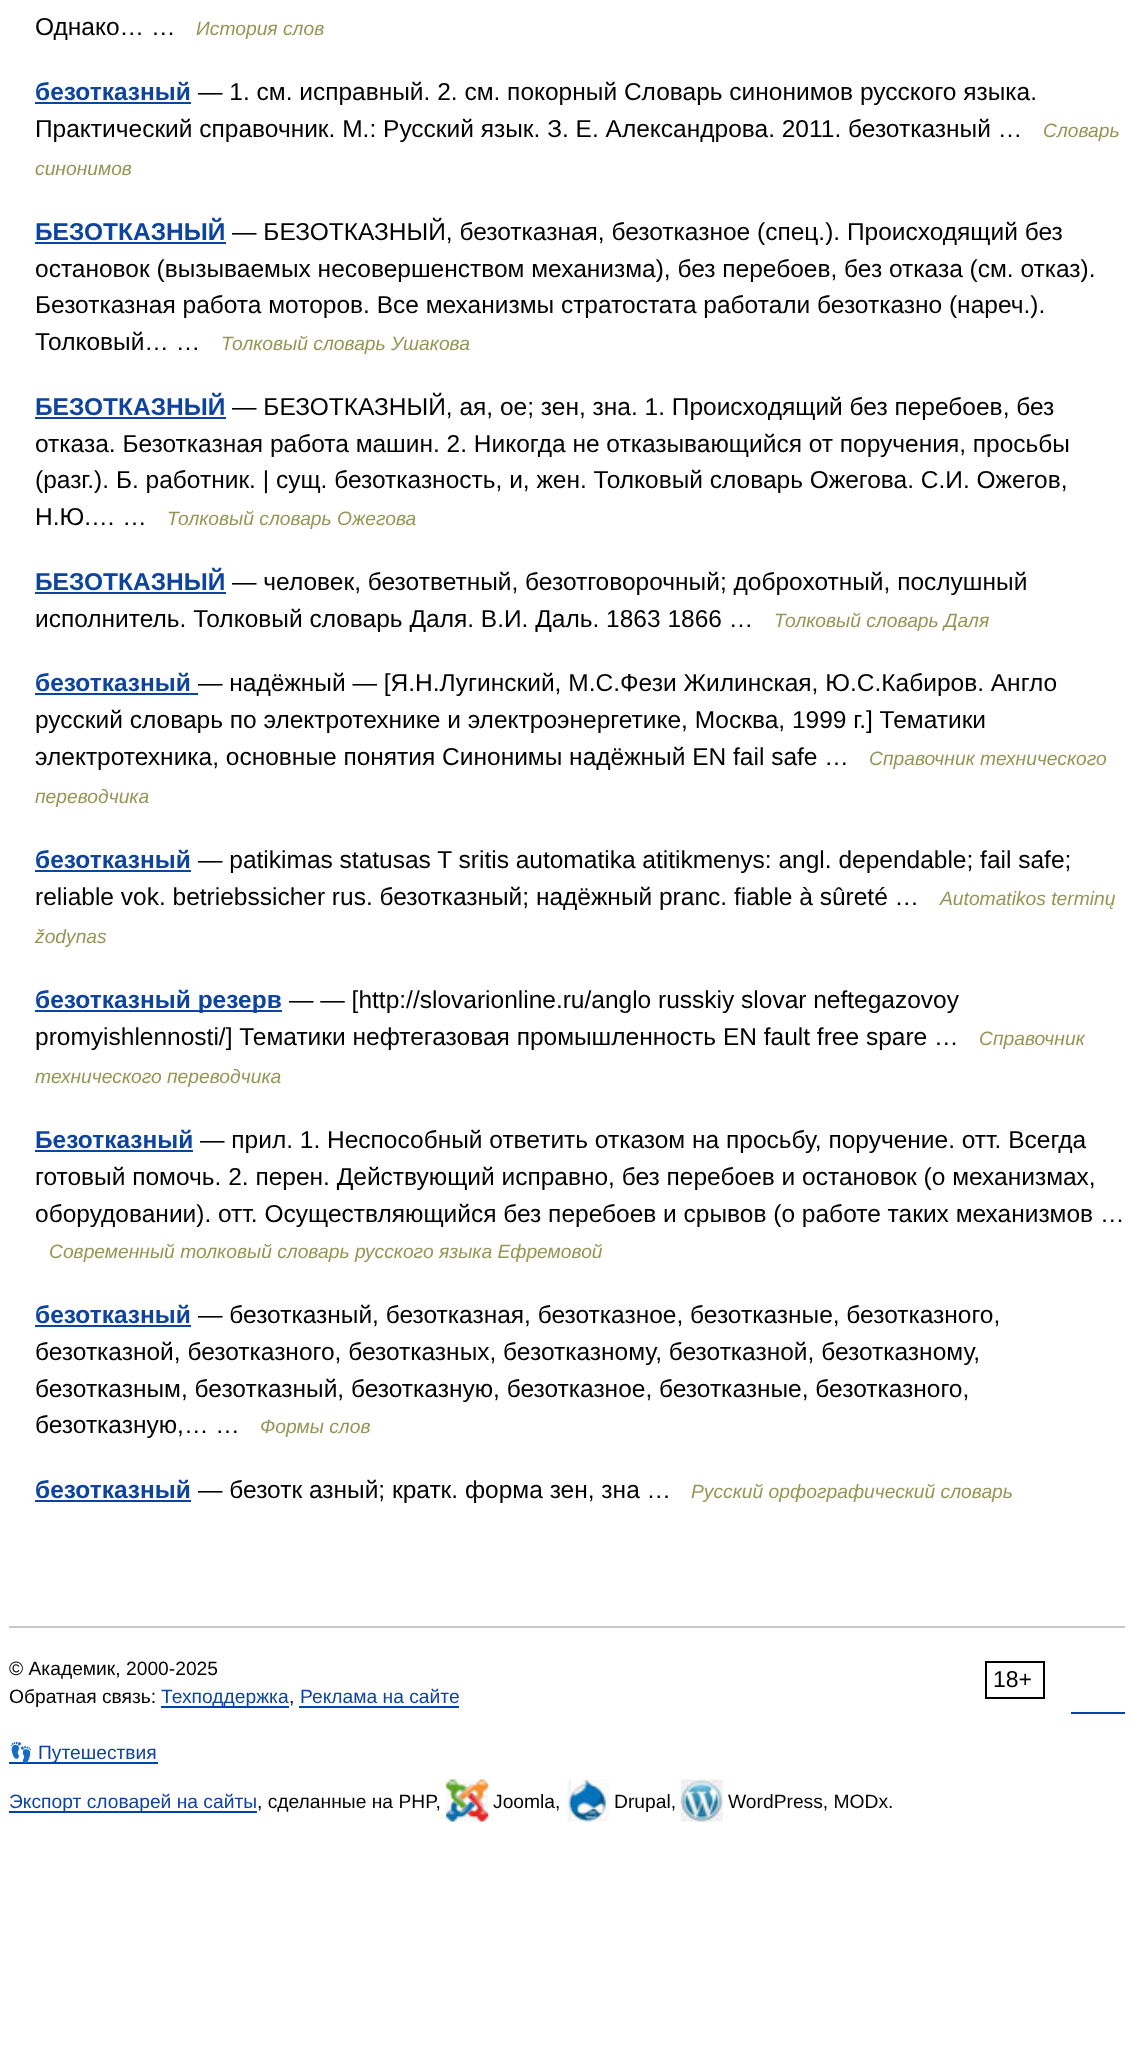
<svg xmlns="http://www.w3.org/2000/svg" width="1134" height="2070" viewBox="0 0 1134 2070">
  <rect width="100%" height="100%" fill="#fff"/>
  <path d="M35 102h156v2H35z" fill="#0d44a0"/>
  <path d="M35 242h191v2H35z" fill="#0d44a0"/>
  <path d="M35 417h191v2H35z" fill="#0d44a0"/>
  <path d="M35 592h191v2H35z" fill="#0d44a0"/>
  <path d="M35 693h163v2H35z" fill="#0d44a0"/>
  <path d="M35 870h156v2H35z" fill="#0d44a0"/>
  <path d="M35 1010h247v2H35z" fill="#0d44a0"/>
  <path d="M35 1150h158v2H35z" fill="#0d44a0"/>
  <path d="M35 1325h156v2H35z" fill="#0d44a0"/>
  <path d="M35 1500h156v2H35z" fill="#0d44a0"/>
  <path d="M9 1626h1116v2H9z" fill="#c7c7c7"/>
  <path d="M986 1662h58v36H986z" fill="none" stroke="#000" stroke-width="2"/>
  <path d="M161 1706h128v2H161z" fill="#04a"/>
  <path d="M299 1706h160v2H299z" fill="#04a"/>
  <path d="M1071 1712h54v2H1071z" fill="#04a"/>
  <path d="M9 1762h149v2H9z" fill="#04a"/>
  <path d="M9 1811h248v2H9z" fill="#04a"/>
  <image x="446" y="1779" width="43" height="43" href="img/1.png"/>
  <image x="567" y="1779" width="42" height="43" href="img/2.png"/>
  <image x="680" y="1779" width="43" height="43" href="img/3.png"/>
  <text x="35" y="35" font-family="Liberation Sans" font-size="24.5" fill="#000">Однако… …</text>
  <text x="196" y="35" font-family="Liberation Sans" font-size="19.25" font-style="italic" fill="#939756">История слов</text>
  <text x="35" y="100" font-family="Liberation Sans" font-size="24.5" font-weight="bold" fill="#0d44a0">безотказный</text>
  <g font-family="Liberation Sans" font-size="24.5" fill="#000">
    <text x="198" y="100">— 1. см. исправный. 2. см. покорный Словарь синонимов русского языка.</text>
    <text x="35" y="137">Практический справочник. М.: Русский язык. З. Е. Александрова. 2011. безотказный …</text>
  </g>
  <g font-family="Liberation Sans" font-size="19.25" font-style="italic" fill="#939756">
    <text x="1043" y="137">Словарь</text>
    <text x="35" y="175">синонимов</text>
  </g>
  <text x="35" y="240" font-family="Liberation Sans" font-size="24.5" font-weight="bold" fill="#0d44a0">БЕЗОТКАЗНЫЙ</text>
  <g font-family="Liberation Sans" font-size="24.5" fill="#000">
    <text x="232" y="240">— БЕЗОТКАЗНЫЙ, безотказная, безотказное (спец.). Происходящий без</text>
    <text x="35" y="277">остановок (вызываемых несовершенством механизма), без перебоев, без отказа (см. отказ).</text>
    <text x="35" y="313">Безотказная работа моторов. Все механизмы стратостата работали безотказно (нареч.).</text>
    <text x="35" y="350">Толковый… …</text>
  </g>
  <text x="221" y="350" font-family="Liberation Sans" font-size="19.25" font-style="italic" fill="#939756">Толковый словарь Ушакова</text>
  <text x="35" y="415" font-family="Liberation Sans" font-size="24.5" font-weight="bold" fill="#0d44a0">БЕЗОТКАЗНЫЙ</text>
  <g font-family="Liberation Sans" font-size="24.5" fill="#000">
    <text x="232" y="415">— БЕЗОТКАЗНЫЙ, ая, ое; зен, зна. 1. Происходящий без перебоев, без</text>
    <text x="35" y="452">отказа. Безотказная работа машин. 2. Никогда не отказывающийся от поручения, просьбы</text>
    <text x="35" y="488">(разг.). Б. работник. | сущ. безотказность, и, жен. Толковый словарь Ожегова. С.И. Ожегов,</text>
    <text x="35" y="525">Н.Ю.… …</text>
  </g>
  <text x="167" y="525" font-family="Liberation Sans" font-size="19.25" font-style="italic" fill="#939756">Толковый словарь Ожегова</text>
  <text x="35" y="590" font-family="Liberation Sans" font-size="24.5" font-weight="bold" fill="#0d44a0">БЕЗОТКАЗНЫЙ</text>
  <g font-family="Liberation Sans" font-size="24.5" fill="#000">
    <text x="232" y="590">— человек, безответный, безотговорочный; доброхотный, послушный</text>
    <text x="35" y="627">исполнитель. Толковый словарь Даля. В.И. Даль. 1863 1866 …</text>
  </g>
  <text x="774" y="627" font-family="Liberation Sans" font-size="19.25" font-style="italic" fill="#939756">Толковый словарь Даля</text>
  <text x="35" y="691" font-family="Liberation Sans" font-size="24.5" font-weight="bold" fill="#0d44a0">безотказный</text>
  <g font-family="Liberation Sans" font-size="24.5" fill="#000">
    <text x="198" y="691">— надёжный — [Я.Н.Лугинский, М.С.Фези Жилинская, Ю.С.Кабиров. Англо</text>
    <text x="35" y="728">русский словарь по электротехнике и электроэнергетике, Москва, 1999 г.] Тематики</text>
    <text x="35" y="765">электротехника, основные понятия Синонимы надёжный EN fail safe …</text>
  </g>
  <g font-family="Liberation Sans" font-size="19.25" font-style="italic" fill="#939756">
    <text x="869" y="765">Справочник технического</text>
    <text x="35" y="803">переводчика</text>
  </g>
  <text x="35" y="868" font-family="Liberation Sans" font-size="24.5" font-weight="bold" fill="#0d44a0">безотказный</text>
  <g font-family="Liberation Sans" font-size="24.5" fill="#000">
    <text x="198" y="868">— patikimas statusas T sritis automatika atitikmenys: angl. dependable; fail safe;</text>
    <text x="35" y="905">reliable vok. betriebssicher rus. безотказный; надёжный pranc. fiable à sûreté …</text>
  </g>
  <g font-family="Liberation Sans" font-size="19.25" font-style="italic" fill="#939756">
    <text x="940" y="905">Automatikos terminų</text>
    <text x="35" y="943">žodynas</text>
  </g>
  <text x="35" y="1008" font-family="Liberation Sans" font-size="24.5" font-weight="bold" fill="#0d44a0">безотказный резерв</text>
  <g font-family="Liberation Sans" font-size="24.5" fill="#000">
    <text x="289" y="1008">— — [http://slovarionline.ru/anglo russkiy slovar neftegazovoy</text>
    <text x="35" y="1045">promyishlennosti/] Тематики нефтегазовая промышленность EN fault free spare …</text>
  </g>
  <g font-family="Liberation Sans" font-size="19.25" font-style="italic" fill="#939756">
    <text x="979" y="1045">Справочник</text>
    <text x="35" y="1083">технического переводчика</text>
  </g>
  <text x="35" y="1148" font-family="Liberation Sans" font-size="24.5" font-weight="bold" fill="#0d44a0">Безотказный</text>
  <g font-family="Liberation Sans" font-size="24.5" fill="#000">
    <text x="200" y="1148">— прил. 1. Неспособный ответить отказом на просьбу, поручение. отт. Всегда</text>
    <text x="35" y="1185">готовый помочь. 2. перен. Действующий исправно, без перебоев и остановок (о механизмах,</text>
    <text x="35" y="1222">оборудовании). отт. Осуществляющийся без перебоев и срывов (о работе таких механизмов …</text>
  </g>
  <text x="49" y="1258" font-family="Liberation Sans" font-size="19.25" font-style="italic" fill="#939756">Современный толковый словарь русского языка Ефремовой</text>
  <text x="35" y="1323" font-family="Liberation Sans" font-size="24.5" font-weight="bold" fill="#0d44a0">безотказный</text>
  <g font-family="Liberation Sans" font-size="24.5" fill="#000">
    <text x="198" y="1323">— безотказный, безотказная, безотказное, безотказные, безотказного,</text>
    <text x="35" y="1360">безотказной, безотказного, безотказных, безотказному, безотказной, безотказному,</text>
    <text x="35" y="1397">безотказным, безотказный, безотказную, безотказное, безотказные, безотказного,</text>
    <text x="35" y="1433">безотказную,… …</text>
  </g>
  <text x="260" y="1433" font-family="Liberation Sans" font-size="19.25" font-style="italic" fill="#939756">Формы слов</text>
  <text x="35" y="1498" font-family="Liberation Sans" font-size="24.5" font-weight="bold" fill="#0d44a0">безотказный</text>
  <text x="198" y="1498" font-family="Liberation Sans" font-size="24.5" fill="#000">— безотк азный; кратк. форма зен, зна …</text>
  <text x="691" y="1498" font-family="Liberation Sans" font-size="19.25" font-style="italic" fill="#939756">Русский орфографический словарь</text>
  <text x="9" y="1675" font-family="Liberation Sans" font-size="19.25" fill="#000">© Академик, 2000-2025</text>
  <text x="993" y="1687" font-family="Liberation Sans" font-size="23" fill="#000">18+</text>
  <text x="9" y="1703" font-family="Liberation Sans" font-size="19.25" fill="#000">Обратная связь:</text>
  <text x="161" y="1703" font-family="Liberation Sans" font-size="19.25" fill="#0d44a0">Техподдержка</text>
  <text x="289" y="1703" font-family="Liberation Sans" font-size="19.25" fill="#000">,</text>
  <text x="300" y="1703" font-family="Liberation Sans" font-size="19.25" fill="#0d44a0">Реклама на сайте</text>
  <text x="9" y="1759" font-family="Noto Color Emoji" font-size="19.25" fill="#0d44a0">👣</text>
  <g font-family="Liberation Sans" font-size="19.25" fill="#0d44a0">
    <text x="38" y="1759">Путешествия</text>
    <text x="9" y="1808">Экспорт словарей на сайты</text>
  </g>
  <g font-family="Liberation Sans" font-size="19.25" fill="#000">
    <text x="257" y="1808">, сделанные на PHP,</text>
    <text x="493" y="1808">Joomla,</text>
    <text x="614" y="1808">Drupal,</text>
    <text x="728" y="1808">WordPress, MODx.</text>
  </g>
</svg>
